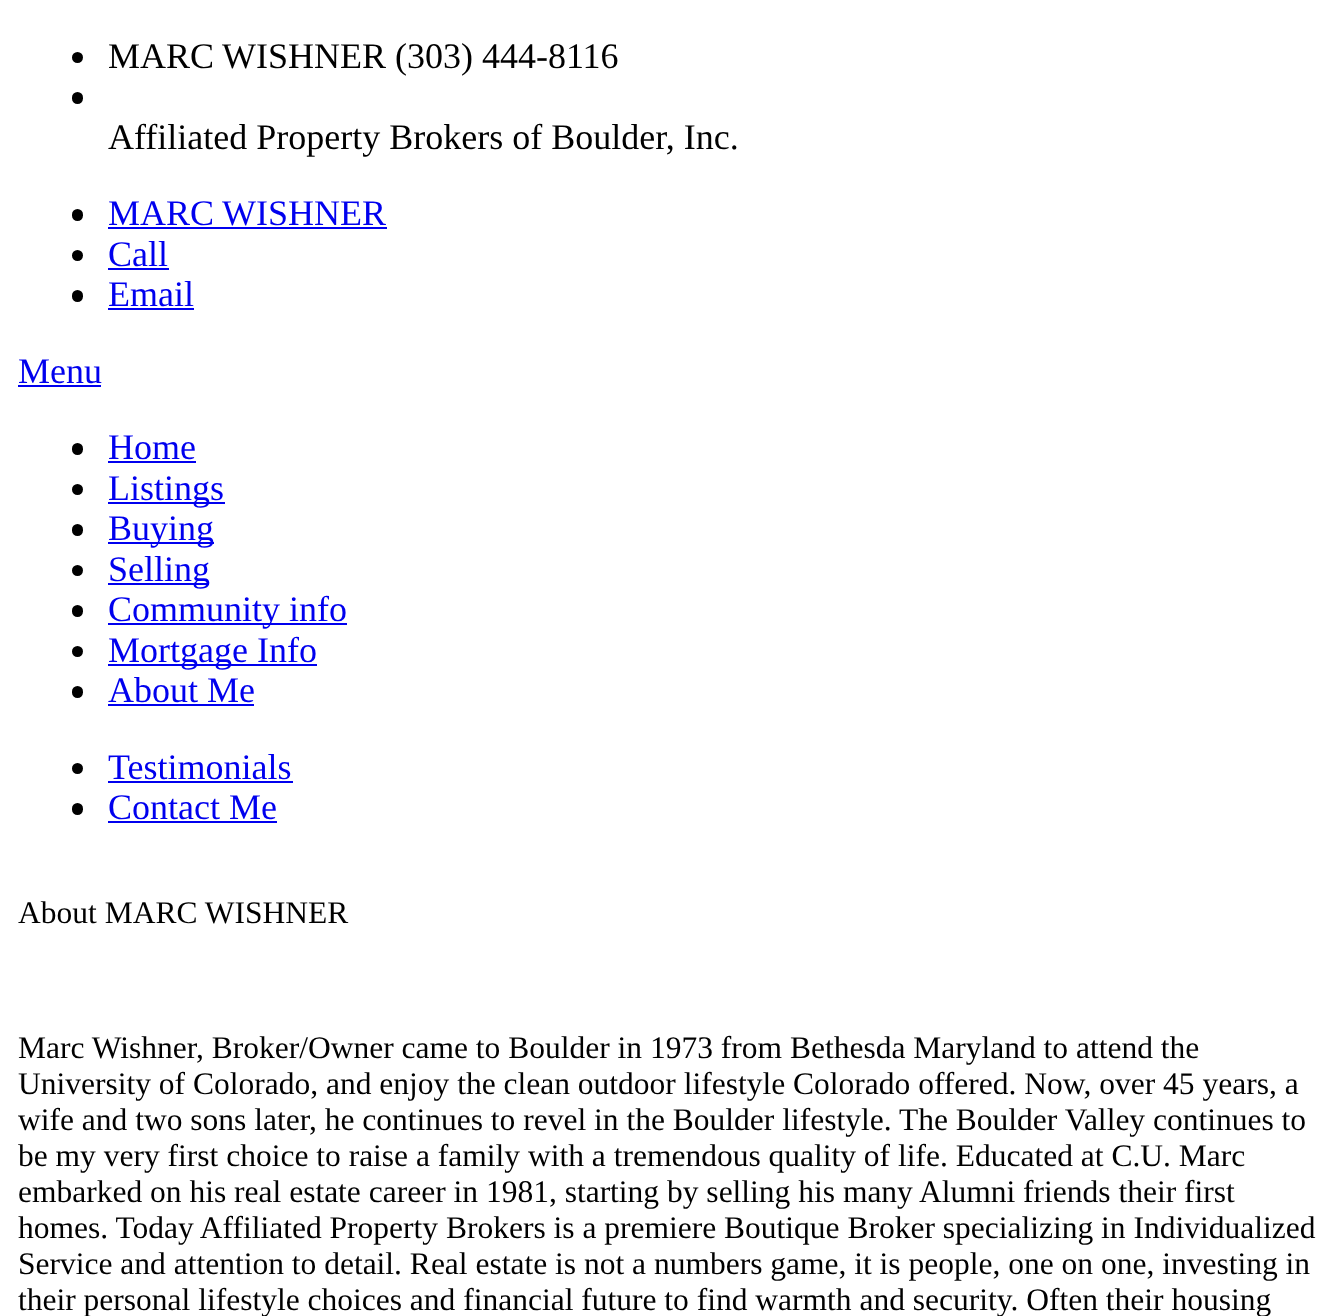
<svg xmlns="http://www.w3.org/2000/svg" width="1337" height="1316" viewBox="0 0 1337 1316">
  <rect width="100%" height="100%" fill="#fff"/>
  <circle cx="77.5" cy="57.5" r="5.5" fill="#000"/>
  <rect x="72" y="92" width="11" height="12" rx="5.5" fill="#000"/>
  <rect x="72" y="209" width="11" height="12" rx="5.5" fill="#000"/>
  <path d="M108 227h279v2H108z" fill="#00e"/>
  <circle cx="77.5" cy="255.5" r="5.5" fill="#000"/>
  <path d="M108 268h61v2H108z" fill="#00e"/>
  <rect x="72" y="290" width="11" height="12" rx="5.5" fill="#000"/>
  <path d="M108 308h86v2H108z" fill="#00e"/>
  <path d="M18 385h83v2H18z" fill="#00e"/>
  <rect x="72" y="443" width="11" height="12" rx="5.5" fill="#000"/>
  <path d="M108 461h88v2H108z" fill="#00e"/>
  <circle cx="77.5" cy="489.5" r="5.5" fill="#000"/>
  <path d="M108 502h117v2H108z" fill="#00e"/>
  <rect x="72" y="524" width="11" height="12" rx="5.5" fill="#000"/>
  <path d="M108 542h106v2H108z" fill="#00e"/>
  <circle cx="77.5" cy="570.5" r="5.5" fill="#000"/>
  <path d="M108 583h101v2H108z" fill="#00e"/>
  <rect x="72" y="605" width="11" height="12" rx="5.5" fill="#000"/>
  <path d="M108 623h239v2H108z" fill="#00e"/>
  <circle cx="77.5" cy="651.5" r="5.5" fill="#000"/>
  <path d="M108 664h209v2H108z" fill="#00e"/>
  <rect x="72" y="686" width="11" height="12" rx="5.5" fill="#000"/>
  <path d="M108 704h146v2H108z" fill="#00e"/>
  <circle cx="77.5" cy="768.5" r="5.5" fill="#000"/>
  <path d="M108 781h185v2H108z" fill="#00e"/>
  <rect x="72" y="803" width="11" height="12" rx="5.5" fill="#000"/>
  <path d="M108 821h169v2H108z" fill="#00e"/>
  <g font-family="Liberation Serif" font-size="36" fill="#000">
    <text x="108" y="68">MARC</text>
    <text x="222" y="68">WISHNER (303) 444-8116</text>
    <text x="108" y="149">Affiliated Property Brokers of Boulder, Inc.</text>
  </g>
  <g font-family="Liberation Serif" font-size="36" fill="#00e">
    <text x="108" y="225">MARC</text>
    <text x="222" y="225">WISHNER</text>
    <text x="108" y="266">Call</text>
    <text x="108" y="306">Email</text>
    <text x="18" y="383">Menu</text>
    <text x="108" y="459">Home</text>
    <text x="108" y="500">Listings</text>
    <text x="108" y="540">Buying</text>
    <text x="108" y="581">Selling</text>
    <text x="108" y="621">Community info</text>
    <text x="108" y="662">Mortgage Info</text>
    <text x="108" y="702">About Me</text>
    <text x="108" y="779">Testimonials</text>
    <text x="108" y="819">Contact Me</text>
  </g>
  <g font-family="Liberation Serif" font-size="31.5" fill="#000">
    <text x="18" y="923">About MARC WISHNER</text>
    <text x="18" y="1058">Marc Wishner, Broker/Owner came to Boulder in 1973 from Bethesda Maryland to attend the</text>
    <text x="18" y="1094">University of Colorado, and enjoy the clean outdoor lifestyle Colorado offered. Now, over 45 years, a</text>
    <text x="18" y="1130">wife and two sons later, he continues to revel in the Boulder lifestyle.</text>
    <text x="899" y="1130">The Boulder Valley continues to</text>
    <text x="18" y="1166">be my very first choice to raise a family with a tremendous quality of life. Educated at C.U. Marc</text>
    <text x="18" y="1202">embarked on his real estate career in 1981, starting by selling his many Alumni friends their first</text>
    <text x="18" y="1238">homes. Today Affiliated Property Brokers is a premiere Boutique Broker specializing in Individualized</text>
    <text x="18" y="1274">Service and attention to detail. Real estate is not a numbers game, it is people, one on one, investing in</text>
    <text x="18" y="1310">their personal lifestyle choices and financial future to find warmth and security. Often their housing</text>
  </g>
</svg>
